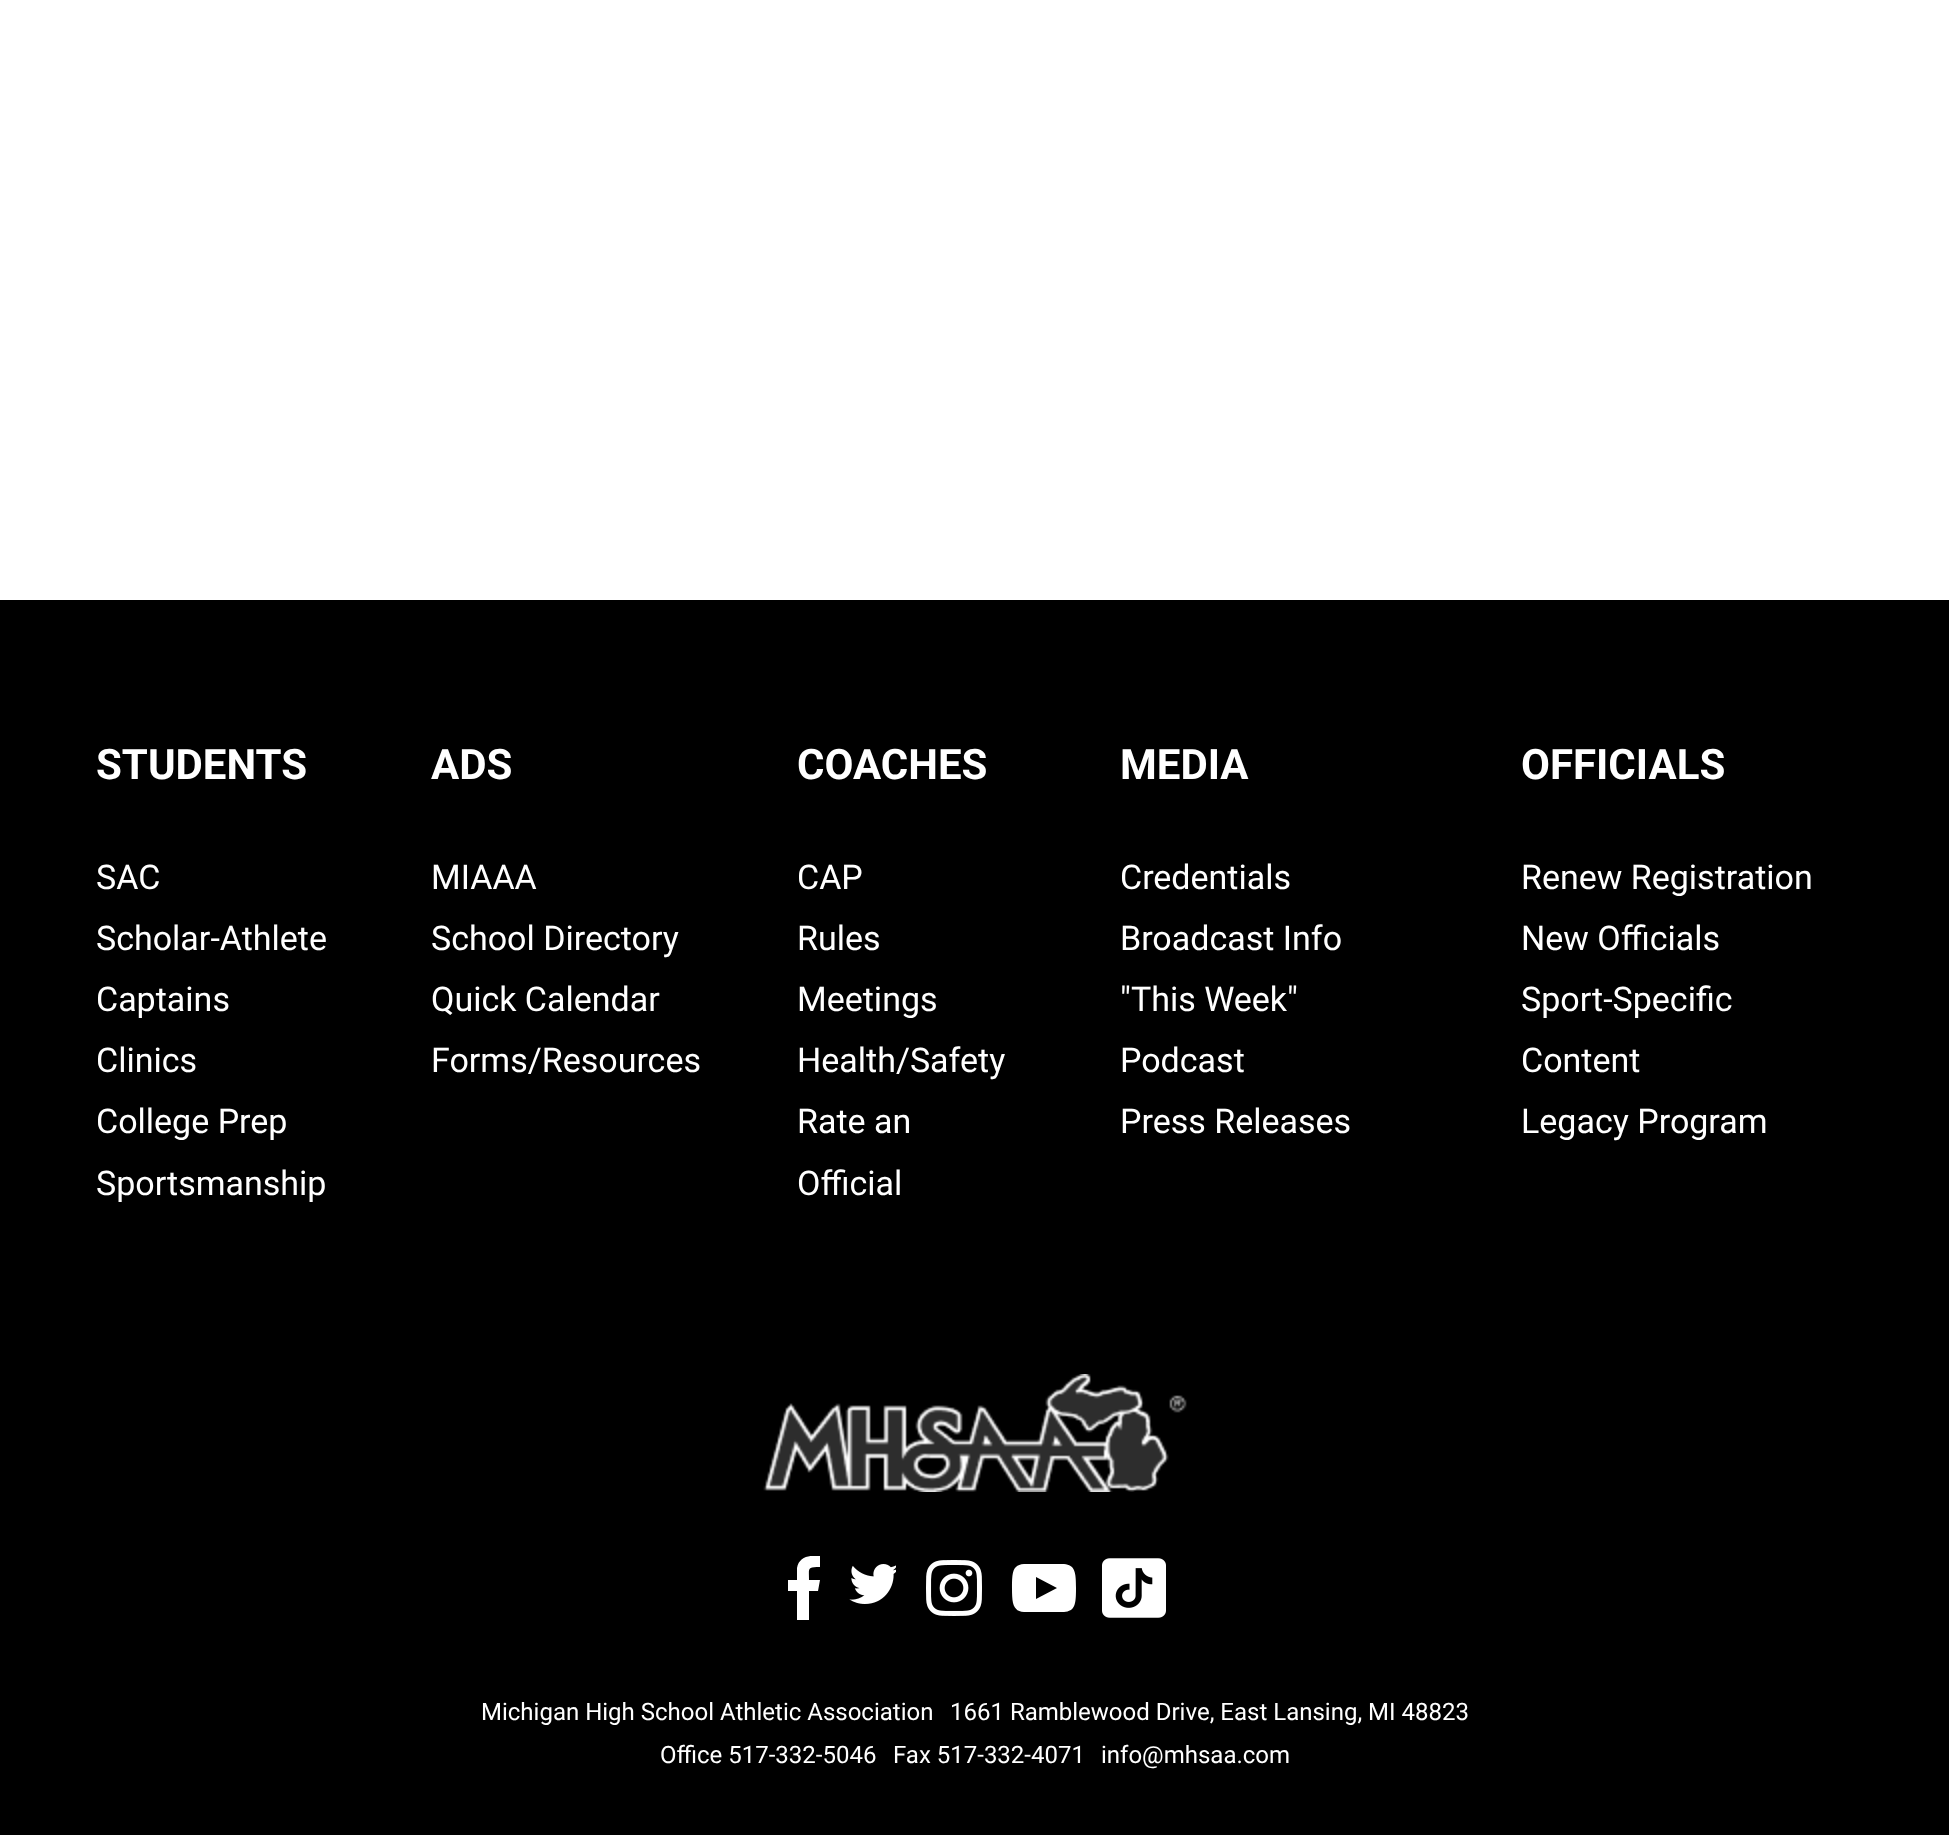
<svg xmlns="http://www.w3.org/2000/svg" width="1949" height="1835" viewBox="0 0 1949 1835">
  <defs>
    <clipPath id="clip1"><path d="M786 1556h36v64H786z"/></clipPath>
  </defs>
  <rect width="100%" height="100%" fill="#fff"/>
  <path d="M0 600h1949v1235H0z" fill="#000"/>
  <image x="763" y="1374" width="424" height="118" href="img/1.png"/>
  <g clip-path="url(#clip1)">
    <path d="M797 1620V1591H788V1580H797V1568C799 1556 811 1555 820 1556V1567C807 1567 809 1568 809 1580H820L818 1591H809V1620" fill="#fff"/>
  </g>
  <image x="849" y="1564" width="47" height="40" href="img/2.png"/>
  <image x="926" y="1560" width="56" height="56" href="img/3.png"/>
  <path d="M1064 1564C1055 1564 1033 1564 1024 1564C1013 1565 1012 1571 1012 1588C1012 1604 1013 1611 1024 1612C1033 1612 1055 1612 1064 1612C1075 1611 1076 1605 1076 1588C1076 1572 1075 1565 1064 1564ZM1036 1599V1577L1057 1588Z" fill="#fff"/>
  <image x="1102" y="1558" width="64" height="60" href="img/4.png"/>
  <text x="96" y="779" font-family="Roboto" font-size="42" font-weight="bold" fill="#fff">STUDENTS</text>
  <g font-family="Roboto" font-size="34" fill="#fff">
    <text x="96" y="889">SAC</text>
    <text x="96" y="950">Scholar-Athlete</text>
    <text x="96" y="1011">Captains</text>
    <text x="96" y="1072">Clinics</text>
    <text x="96" y="1133">College Prep</text>
    <text x="96" y="1195">Sportsmanship</text>
  </g>
  <text x="431" y="779" font-family="Roboto" font-size="42" font-weight="bold" fill="#fff">ADS</text>
  <g font-family="Roboto" font-size="34" fill="#fff">
    <text x="431" y="889">MIAAA</text>
    <text x="431" y="950">School Directory</text>
    <text x="431" y="1011">Quick Calendar</text>
    <text x="431" y="1072">Forms/Resources</text>
  </g>
  <text x="797" y="779" font-family="Roboto" font-size="42" font-weight="bold" fill="#fff">COACHES</text>
  <g font-family="Roboto" font-size="34" fill="#fff">
    <text x="797" y="889">CAP</text>
    <text x="797" y="950">Rules</text>
    <text x="797" y="1011">Meetings</text>
    <text x="797" y="1072">Health/Safety</text>
    <text x="797" y="1133">Rate an</text>
    <text x="797" y="1195">Official</text>
  </g>
  <text x="1120" y="779" font-family="Roboto" font-size="42" font-weight="bold" fill="#fff">MEDIA</text>
  <g font-family="Roboto" font-size="34" fill="#fff">
    <text x="1120" y="889">Credentials</text>
    <text x="1120" y="950">Broadcast Info</text>
    <text x="1120" y="1011">"This Week"</text>
    <text x="1120" y="1072">Podcast</text>
    <text x="1120" y="1133">Press Releases</text>
  </g>
  <text x="1521" y="779" font-family="Roboto" font-size="42" font-weight="bold" fill="#fff">OFFICIALS</text>
  <g font-family="Roboto" font-size="34" fill="#fff">
    <text x="1521" y="889">Renew Registration</text>
    <text x="1521" y="950">New Officials</text>
    <text x="1521" y="1011">Sport-Specific</text>
    <text x="1521" y="1072">Content</text>
    <text x="1521" y="1133">Legacy Program</text>
  </g>
  <g font-family="Roboto" font-size="24" fill="#fff">
    <text x="481" y="1720">Michigan High School Athletic Association</text>
    <text x="950" y="1720">1661 Ramblewood Drive, East Lansing, MI 48823</text>
    <text x="660" y="1763">Office 517-332-5046</text>
    <text x="893" y="1763">Fax 517-332-4071</text>
    <text x="1101" y="1763">info@mhsaa.com</text>
  </g>
</svg>
